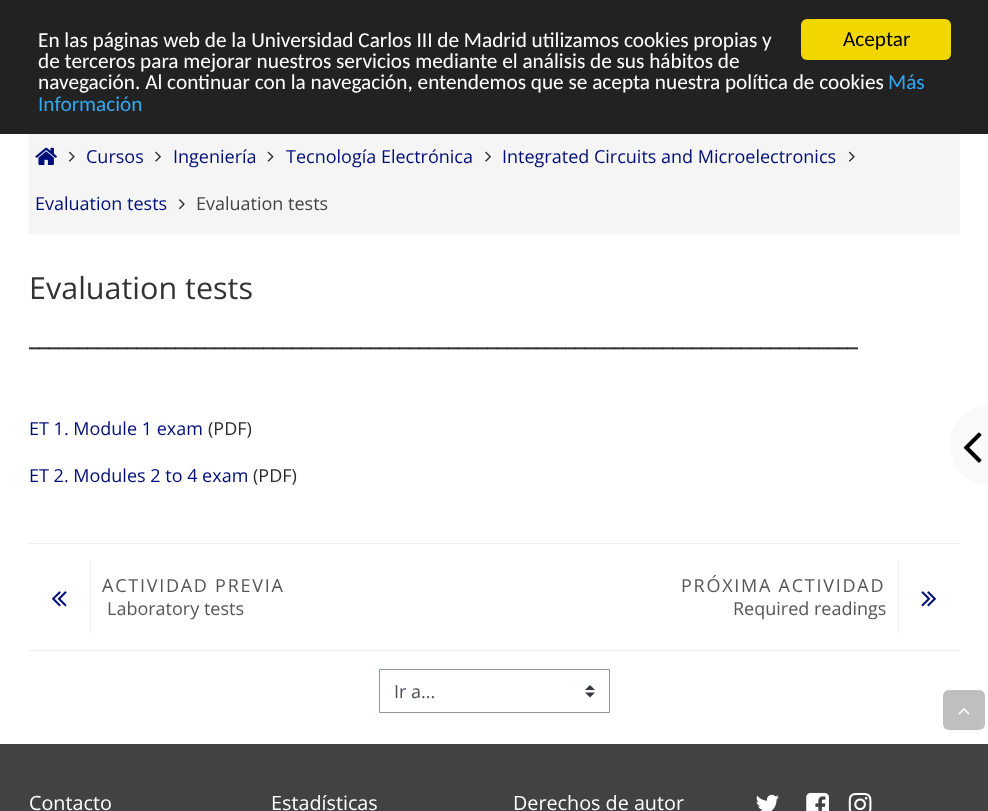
<svg xmlns="http://www.w3.org/2000/svg" width="988" height="811" viewBox="0 0 988 811">
  <rect width="100%" height="100%" fill="#fff"/>
  <path d="M0 0h988v134H0z" fill="#222"/>
  <rect x="801" y="19" width="150" height="41" rx="6" fill="#f1d600"/>
  <path d="M29 134h931v100H29z" fill="#f5f5f5"/>
  <image x="35" y="147" width="22" height="18" href="img/1.png"/>
  <image x="68" y="151" width="7" height="11" href="img/2.png"/>
  <image x="155" y="151" width="6" height="11" href="img/3.png"/>
  <image x="267" y="151" width="7" height="11" href="img/4.png"/>
  <image x="485" y="151" width="6" height="11" href="img/3.png"/>
  <image x="848" y="151" width="7" height="11" href="img/2.png"/>
  <image x="178" y="199" width="7" height="11" href="img/5.png"/>
  <path d="M29 543h931v1H29z" fill="#eee"/>
  <path d="M29 650h931v1H29z" fill="#eee"/>
  <path d="M90 561h1v72H90z" fill="#eee"/>
  <image x="52" y="591" width="15" height="16" href="img/6.png"/>
  <path d="M898 561h1v72H898z" fill="#eee"/>
  <image x="921" y="591" width="15" height="16" href="img/7.png"/>
  <image x="585" y="685" width="10" height="13" href="img/8.png"/>
  <path d="M379.5 669.5h230v43H379.5z" fill="none" stroke="#8f959e"/>
  <path d="M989 406V485C967.5 485 950 467.5 950 446V445C950 423.5 967.5 406 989 406Z" fill="#f9f9f9"/>
  <image x="963" y="432" width="19" height="31" href="img/9.png"/>
  <rect x="943" y="690" width="42" height="40" rx="6" fill="#bfbfbf"/>
  <image x="958" y="708" width="12" height="7" href="img/10.png"/>
  <path d="M0 744h988v67H0z" fill="#424242"/>
  <image x="756" y="794" width="23" height="17" href="img/11.png"/>
  <image x="806" y="792" width="23" height="19" href="img/12.png"/>
  <image x="848" y="792" width="24" height="19" href="img/13.png"/>
  <g font-family="Carlito" font-size="21.25" fill="#fff">
    <text x="38" y="47">En las páginas web de la Universidad Carlos III de Madrid utilizamos cookies propias y</text>
    <text x="38" y="68">de terceros para mejorar nuestros servicios mediante el análisis de sus hábitos de</text>
    <text x="38" y="89">navegación. Al continuar con la navegación, entendemos que se acepta nuestra política de cookies</text>
  </g>
  <g font-family="Carlito" font-size="21.25" fill="#31a8f0">
    <text x="888" y="89">Más</text>
    <text x="38" y="111">Información</text>
  </g>
  <text x="843" y="46" font-family="Carlito" font-size="21.25" fill="#000">Aceptar</text>
  <g font-family="Open Sans" font-size="18" fill="#000e77">
    <text x="86" y="163">Cursos</text>
    <text x="173" y="163">Ingeniería</text>
    <text x="286" y="163">Tecnología Electrónica</text>
    <text x="502" y="163">Integrated Circuits and Microelectronics</text>
    <text x="35" y="210">Evaluation tests</text>
  </g>
  <text x="196" y="210" font-family="Open Sans" font-size="18" fill="#444">Evaluation tests</text>
  <text x="29" y="299" font-family="Open Sans" font-size="30.5" fill="#333">Evaluation tests</text>
  <text x="29" y="346" font-family="Open Sans" font-size="22.25" font-weight="bold" fill="#333">_____________________________________________________________________________________</text>
  <text x="29" y="435" font-family="Open Sans" font-size="18" fill="#000e77">ET 1. Module 1 exam</text>
  <text x="208" y="435" font-family="Open Sans" font-size="18" fill="#2a2a2a">(PDF)</text>
  <text x="29" y="482" font-family="Open Sans" font-size="18" fill="#000e77">ET 2. Modules 2 to 4 exam</text>
  <text x="253" y="482" font-family="Open Sans" font-size="18" fill="#2a2a2a">(PDF)</text>
  <text x="102" y="592" font-family="Open Sans" font-size="18" letter-spacing="1.75" fill="#565656">ACTIVIDAD PREVIA</text>
  <text x="107" y="615" font-family="Open Sans" font-size="18" fill="#565656">Laboratory tests</text>
  <text x="681" y="592" font-family="Open Sans" font-size="18" letter-spacing="1.75" fill="#565656">PRÓXIMA ACTIVIDAD</text>
  <text x="733" y="615" font-family="Open Sans" font-size="18" fill="#565656">Required readings</text>
  <text x="394" y="698" font-family="Open Sans" font-size="18" fill="#495057">Ir a...</text>
  <g font-family="Open Sans" font-size="19.75" fill="#fff">
    <text x="29" y="810">Contacto</text>
    <text x="271" y="810">Estadísticas</text>
    <text x="513" y="810">Derechos de autor</text>
  </g>
</svg>
